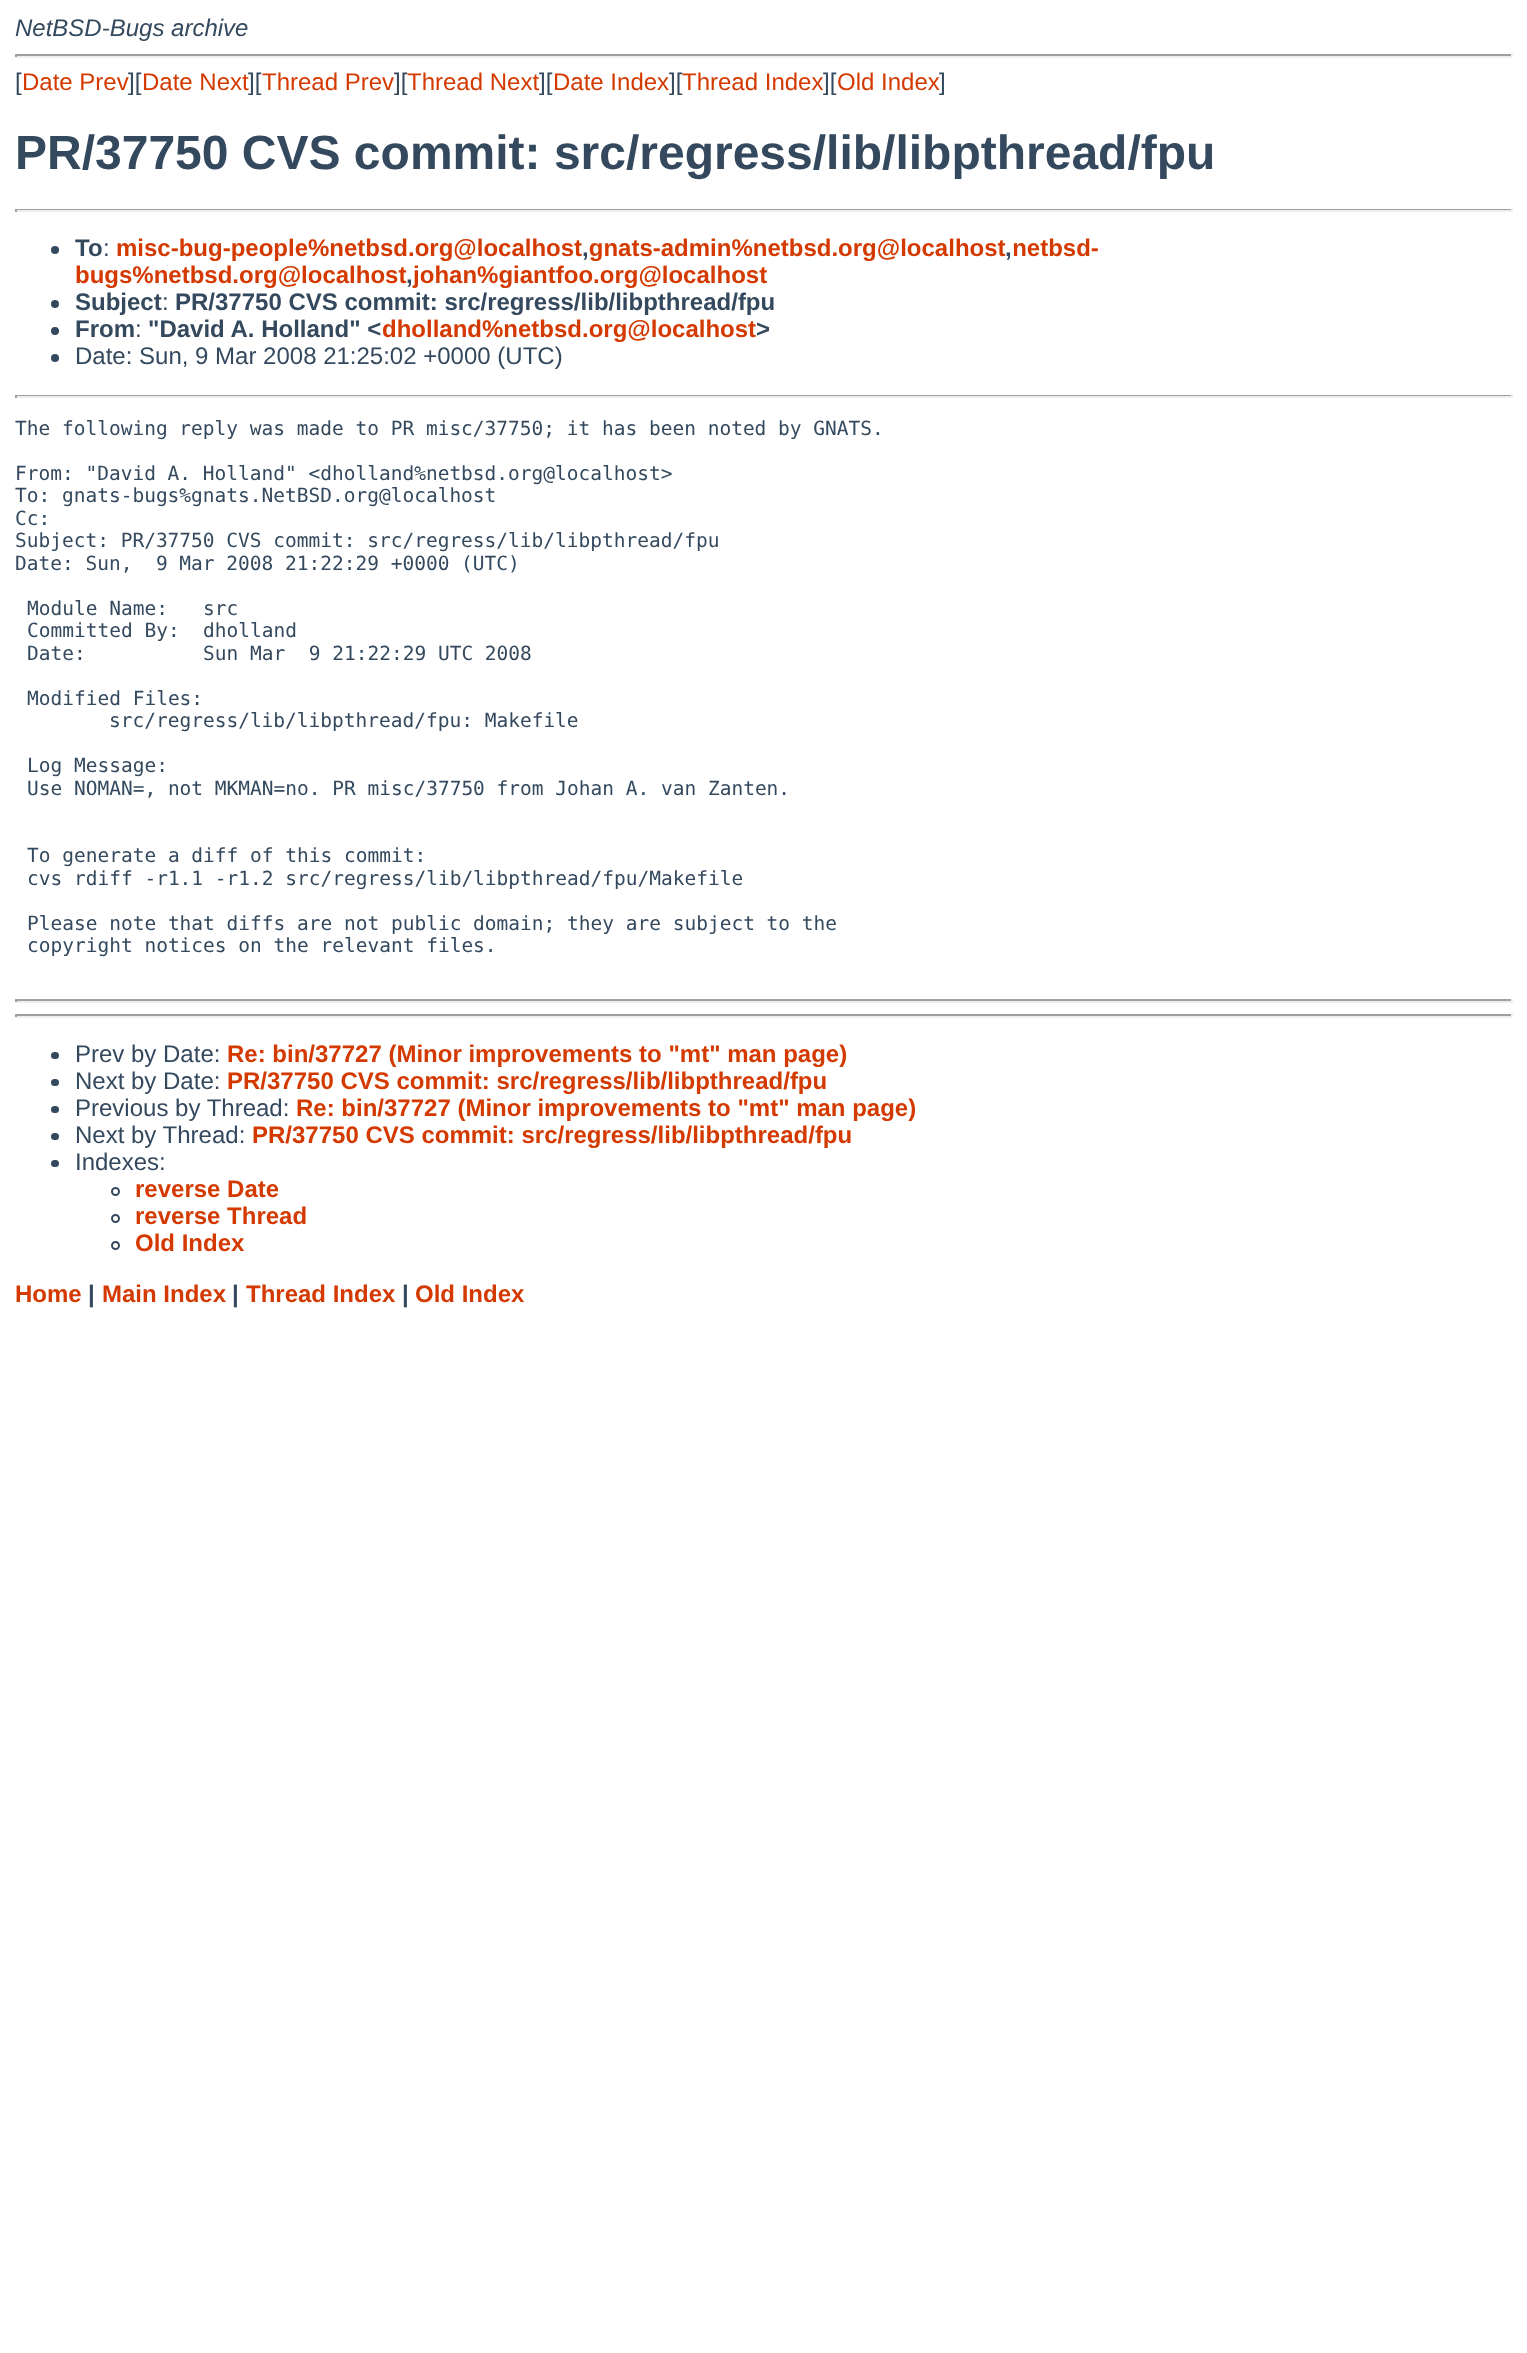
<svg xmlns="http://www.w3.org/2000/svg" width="1527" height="2353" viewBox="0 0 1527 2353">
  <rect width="100%" height="100%" fill="#fff"/>
  <path d="M15 54h1497v2H15z" fill="#9f9f9f"/>
  <path d="M1511 54h2v3H1511z" fill="#eee"/>
  <path d="M15 56h1497v2H15z" fill="#eee"/>
  <path d="M15 54h2v3H15z" fill="#9f9f9f"/>
  <path d="M15 209h1497v1H15z" fill="#9f9f9f"/>
  <path d="M1511 209h2v3H1511z" fill="#eee"/>
  <path d="M15 210h1497v2H15z" fill="#eee"/>
  <path d="M15 209h2v3H15z" fill="#9f9f9f"/>
  <circle cx="55" cy="250" r="4" fill="#34495e"/>
  <circle cx="55" cy="304" r="4" fill="#34495e"/>
  <circle cx="55" cy="331" r="4" fill="#34495e"/>
  <circle cx="55" cy="358" r="4" fill="#34495e"/>
  <path d="M15 395h1497v1H15z" fill="#9f9f9f"/>
  <path d="M1511 395h2v3H1511z" fill="#eee"/>
  <path d="M15 396h1497v2H15z" fill="#eee"/>
  <path d="M15 395h2v3H15z" fill="#9f9f9f"/>
  <path d="M15 999h1497v2H15z" fill="#9f9f9f"/>
  <path d="M1511 999h2v3H1511z" fill="#eee"/>
  <path d="M15 1001h1497v2H15z" fill="#eee"/>
  <path d="M15 999h2v3H15z" fill="#9f9f9f"/>
  <path d="M15 1014h1497v2H15z" fill="#9f9f9f"/>
  <path d="M1511 1014h2v3H1511z" fill="#eee"/>
  <path d="M15 1016h1497v2H15z" fill="#eee"/>
  <path d="M15 1014h2v3H15z" fill="#9f9f9f"/>
  <rect x="51" y="1052" width="8" height="7" rx="3.5" fill="#34495e"/>
  <rect x="51" y="1079" width="8" height="7" rx="3.5" fill="#34495e"/>
  <rect x="51" y="1106" width="8" height="7" rx="3.5" fill="#34495e"/>
  <rect x="51" y="1133" width="8" height="7" rx="3.5" fill="#34495e"/>
  <rect x="51" y="1160" width="8" height="7" rx="3.5" fill="#34495e"/>
  <circle cx="115.5" cy="1191.5" r="3.5" fill="none" stroke="#34495e" stroke-width="2"/>
  <circle cx="115.5" cy="1218.5" r="3.5" fill="none" stroke="#34495e" stroke-width="2"/>
  <circle cx="115.5" cy="1245.5" r="3.5" fill="none" stroke="#34495e" stroke-width="2"/>
  <text x="15" y="36" font-family="Liberation Sans" font-size="24" font-style="italic" fill="#34495e">NetBSD-Bugs archive</text>
  <text x="15" y="90" font-family="Liberation Sans" font-size="24" fill="#34495e">[</text>
  <text x="22" y="90" font-family="Liberation Sans" font-size="24" fill="#d43900">Date Prev</text>
  <text x="128" y="90" font-family="Liberation Sans" font-size="24" fill="#34495e">][</text>
  <text x="142" y="90" font-family="Liberation Sans" font-size="24" fill="#d43900">Date Next</text>
  <text x="248" y="90" font-family="Liberation Sans" font-size="24" fill="#34495e">][</text>
  <text x="262" y="90" font-family="Liberation Sans" font-size="24" fill="#d43900">Thread Prev</text>
  <text x="394" y="90" font-family="Liberation Sans" font-size="24" fill="#34495e">][</text>
  <text x="407" y="90" font-family="Liberation Sans" font-size="24" fill="#d43900">Thread Next</text>
  <text x="539" y="90" font-family="Liberation Sans" font-size="24" fill="#34495e">][</text>
  <text x="553" y="90" font-family="Liberation Sans" font-size="24" fill="#d43900">Date Index</text>
  <text x="669" y="90" font-family="Liberation Sans" font-size="24" fill="#34495e">][</text>
  <text x="682" y="90" font-family="Liberation Sans" font-size="24" fill="#d43900">Thread Index</text>
  <text x="823" y="90" font-family="Liberation Sans" font-size="24" fill="#34495e">][</text>
  <text x="837" y="90" font-family="Liberation Sans" font-size="24" fill="#d43900">Old Index</text>
  <text x="939" y="90" font-family="Liberation Sans" font-size="24" fill="#34495e">]</text>
  <text x="15" y="169" font-family="Liberation Sans" font-size="48" font-weight="bold" fill="#34495e">PR/37750 CVS commit: src/regress/lib/libpthread/fpu</text>
  <text x="75" y="256" font-family="Liberation Sans" font-size="24" font-weight="bold" fill="#34495e">To</text>
  <text x="103" y="256" font-family="Liberation Sans" font-size="24" fill="#34495e">:</text>
  <text x="116" y="256" font-family="Liberation Sans" font-size="24" font-weight="bold" fill="#d43900">misc-bug-people%netbsd.org@localhost gnats-admin%netbsd.org@localhost netbsd-</text>
  <g font-family="Liberation Sans" font-size="24" font-weight="bold" fill="#34495e">
    <text x="582" y="256">,</text>
    <text x="1005" y="256">,</text>
  </g>
  <text x="75" y="283" font-family="Liberation Sans" font-size="24" font-weight="bold" fill="#d43900">bugs%netbsd.org@localhost johan%giantfoo.org@localhost</text>
  <g font-family="Liberation Sans" font-size="24" font-weight="bold" fill="#34495e">
    <text x="406" y="283">,</text>
    <text x="75" y="310">Subject</text>
  </g>
  <text x="162" y="310" font-family="Liberation Sans" font-size="24" fill="#34495e">:</text>
  <g font-family="Liberation Sans" font-size="24" font-weight="bold" fill="#34495e">
    <text x="175" y="310">PR/37750 CVS commit: src/regress/lib/libpthread/fpu</text>
    <text x="75" y="337">From</text>
  </g>
  <text x="135" y="337" font-family="Liberation Sans" font-size="24" fill="#34495e">:</text>
  <text x="148" y="337" font-family="Liberation Sans" font-size="24" font-weight="bold" fill="#34495e">"David A. Holland" &lt;</text>
  <text x="382" y="337" font-family="Liberation Sans" font-size="24" font-weight="bold" fill="#d43900">dholland%netbsd.org@localhost</text>
  <text x="756" y="337" font-family="Liberation Sans" font-size="24" font-weight="bold" fill="#34495e">&gt;</text>
  <text x="75" y="364" font-family="Liberation Sans" font-size="24" fill="#34495e">Date: Sun, 9 Mar 2008 21:25:02 +0000 (UTC)</text>
  <g font-family="DejaVu Sans Mono" font-size="19.5" fill="#34495e">
    <text x="15" y="435">The following reply was made to PR misc/37750; it has been noted by GNATS.</text>
    <text x="15" y="480">From: "David A. Holland" &lt;dholland%netbsd.org@localhost&gt;</text>
    <text x="15" y="502">To: gnats-bugs%gnats.NetBSD.org@localhost</text>
    <text x="15" y="525">Cc:</text>
    <text x="15" y="547">Subject: PR/37750 CVS commit: src/regress/lib/libpthread/fpu</text>
    <text x="15" y="570" xml:space="preserve">Date: Sun,  9 Mar 2008 21:22:29 +0000 (UTC)</text>
    <text x="27" y="615" xml:space="preserve">Module Name:   src</text>
    <text x="27" y="637" xml:space="preserve">Committed By:  dholland</text>
    <text x="27" y="660" xml:space="preserve">Date:          Sun Mar  9 21:22:29 UTC 2008</text>
    <text x="27" y="705">Modified Files:</text>
    <text x="109" y="727">src/regress/lib/libpthread/fpu: Makefile</text>
    <text x="27" y="772">Log Message:</text>
    <text x="27" y="795">Use NOMAN=, not MKMAN=no. PR misc/37750 from Johan A. van Zanten.</text>
    <text x="27" y="862">To generate a diff of this commit:</text>
    <text x="27" y="885">cvs rdiff -r1.1 -r1.2 src/regress/lib/libpthread/fpu/Makefile</text>
    <text x="27" y="930">Please note that diffs are not public domain; they are subject to the</text>
    <text x="27" y="952">copyright notices on the relevant files.</text>
  </g>
  <text x="75" y="1062" font-family="Liberation Sans" font-size="24" fill="#34495e">Prev by Date:</text>
  <text x="227" y="1062" font-family="Liberation Sans" font-size="24" font-weight="bold" fill="#d43900">Re: bin/37727 (Minor improvements to "mt" man page)</text>
  <text x="75" y="1089" font-family="Liberation Sans" font-size="24" fill="#34495e">Next by Date:</text>
  <text x="227" y="1089" font-family="Liberation Sans" font-size="24" font-weight="bold" fill="#d43900">PR/37750 CVS commit: src/regress/lib/libpthread/fpu</text>
  <text x="75" y="1116" font-family="Liberation Sans" font-size="24" fill="#34495e">Previous by Thread:</text>
  <text x="296" y="1116" font-family="Liberation Sans" font-size="24" font-weight="bold" fill="#d43900">Re: bin/37727 (Minor improvements to "mt" man page)</text>
  <text x="75" y="1143" font-family="Liberation Sans" font-size="24" fill="#34495e">Next by Thread:</text>
  <text x="252" y="1143" font-family="Liberation Sans" font-size="24" font-weight="bold" fill="#d43900">PR/37750 CVS commit: src/regress/lib/libpthread/fpu</text>
  <text x="75" y="1170" font-family="Liberation Sans" font-size="24" fill="#34495e">Indexes:</text>
  <g font-family="Liberation Sans" font-size="24" font-weight="bold" fill="#d43900">
    <text x="135" y="1197">reverse Date</text>
    <text x="135" y="1224">reverse Thread</text>
    <text x="135" y="1251">Old Index</text>
    <text x="15" y="1302">Home</text>
  </g>
  <text x="88" y="1302" font-family="Liberation Sans" font-size="24" font-weight="bold" fill="#34495e">|</text>
  <text x="102" y="1302" font-family="Liberation Sans" font-size="24" font-weight="bold" fill="#d43900">Main Index</text>
  <text x="232" y="1302" font-family="Liberation Sans" font-size="24" font-weight="bold" fill="#34495e">|</text>
  <text x="246" y="1302" font-family="Liberation Sans" font-size="24" font-weight="bold" fill="#d43900">Thread Index</text>
  <text x="402" y="1302" font-family="Liberation Sans" font-size="24" font-weight="bold" fill="#34495e">|</text>
  <text x="415" y="1302" font-family="Liberation Sans" font-size="24" font-weight="bold" fill="#d43900">Old Index</text>
</svg>
